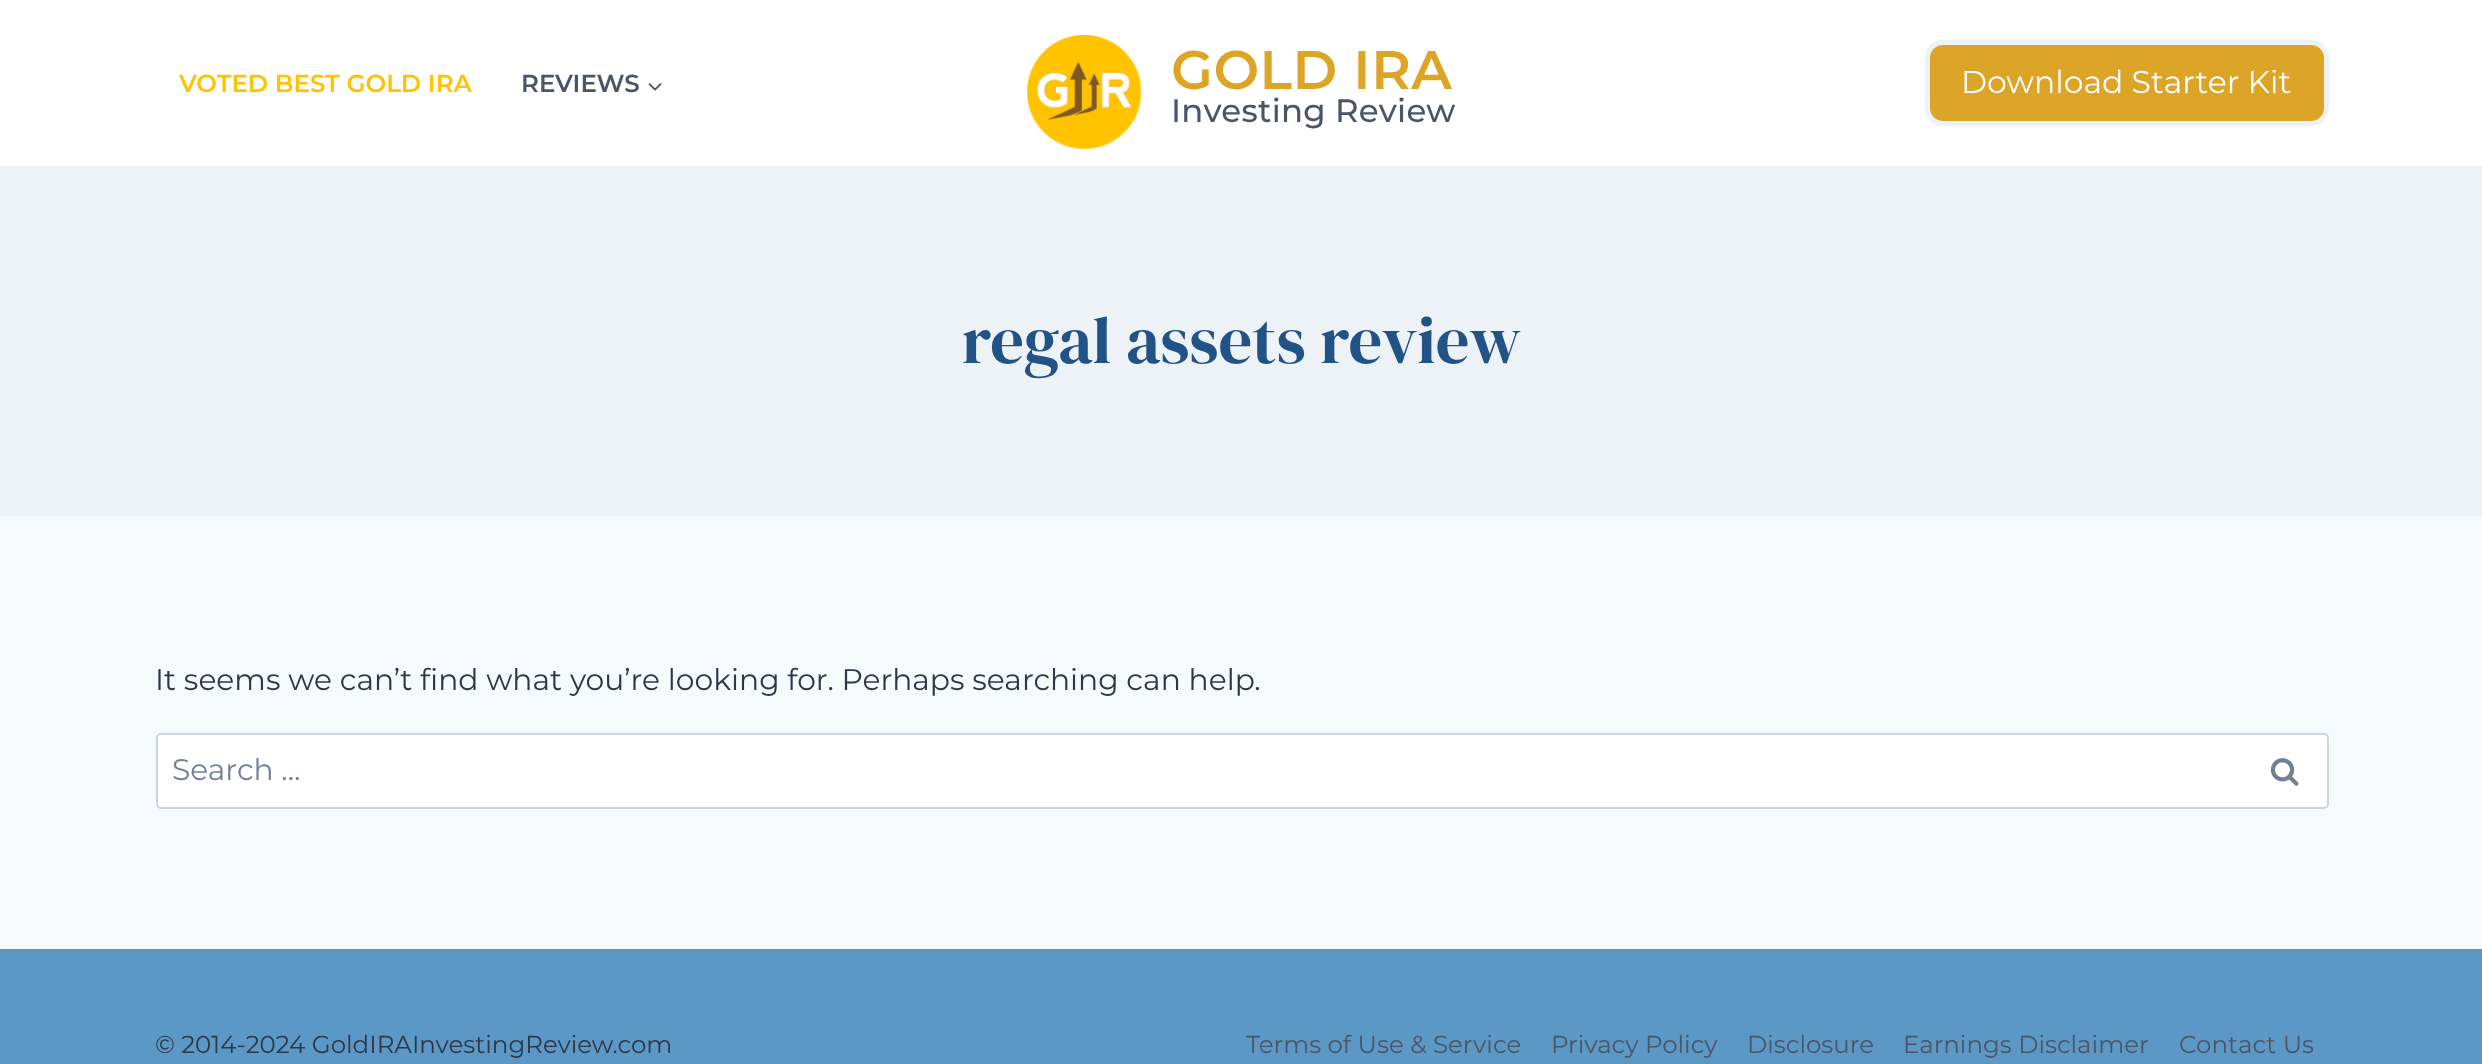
<svg xmlns="http://www.w3.org/2000/svg" width="2482" height="1064" viewBox="0 0 2482 1064">
  <rect width="100%" height="100%" fill="#f7fafc"/>
  <path d="M0 0h2482v166H0z" fill="#fff"/>
  <image x="648" y="83" width="14" height="8" href="img/1.png"/>
  <image x="1027" y="35" width="115" height="115" href="img/2.png"/>
  <rect x="1927.5" y="42.5" width="399" height="81" rx="15.5" fill="#dda527" stroke="#edf2f7" stroke-width="5"/>
  <path d="M0 166h2482v350H0z" fill="#edf2f7"/>
  <rect x="157" y="734" width="2171" height="74" rx="4" fill="#fff" stroke="#cbd5e0" stroke-width="2"/>
  <image x="2270" y="758" width="29" height="28" href="img/3.png"/>
  <path d="M0 949h2482v115H0z" fill="#5b98c6"/>
  <text x="179" y="92" font-family="Montserrat" font-size="24.5" font-weight="600" fill="#ffc300">VOTED BEST GOLD IRA</text>
  <text x="521" y="92" font-family="Montserrat" font-size="24.5" font-weight="600" fill="#4a5568">REVIEWS</text>
  <text x="1171" y="89" font-family="Montserrat" font-size="54.25" font-weight="600" letter-spacing="0.5" fill="#dda527">GOLD IRA</text>
  <text x="1171" y="122" font-family="Montserrat" font-size="32.4" font-weight="500" letter-spacing="0.3" fill="#4a5568">Investing Review</text>
  <text x="1961" y="93" font-family="Montserrat" font-size="31.5" fill="#fff">Download Starter Kit</text>
  <text x="962" y="363" font-family="DM Serif Display" font-size="66.5" fill="#215387">regal assets review</text>
  <text x="155" y="690" font-family="Montserrat" font-size="29.75" fill="#2d3748">It seems we can’t find what you’re looking for. Perhaps searching can help.</text>
  <text x="172" y="780" font-family="Montserrat" font-size="29.75" fill="#718096">Search …</text>
  <text x="155" y="1053" font-family="Montserrat" font-size="24.5" fill="#2d3748">© 2014-2024 GoldIRAInvestingReview.com</text>
  <g font-family="Montserrat" font-size="24.5" fill="#4a5568">
    <text x="1246" y="1053">Terms of Use &amp; Service</text>
    <text x="1551" y="1053">Privacy Policy</text>
    <text x="1747" y="1053">Disclosure</text>
    <text x="1903" y="1053">Earnings Disclaimer</text>
    <text x="2179" y="1053">Contact Us</text>
  </g>
</svg>
